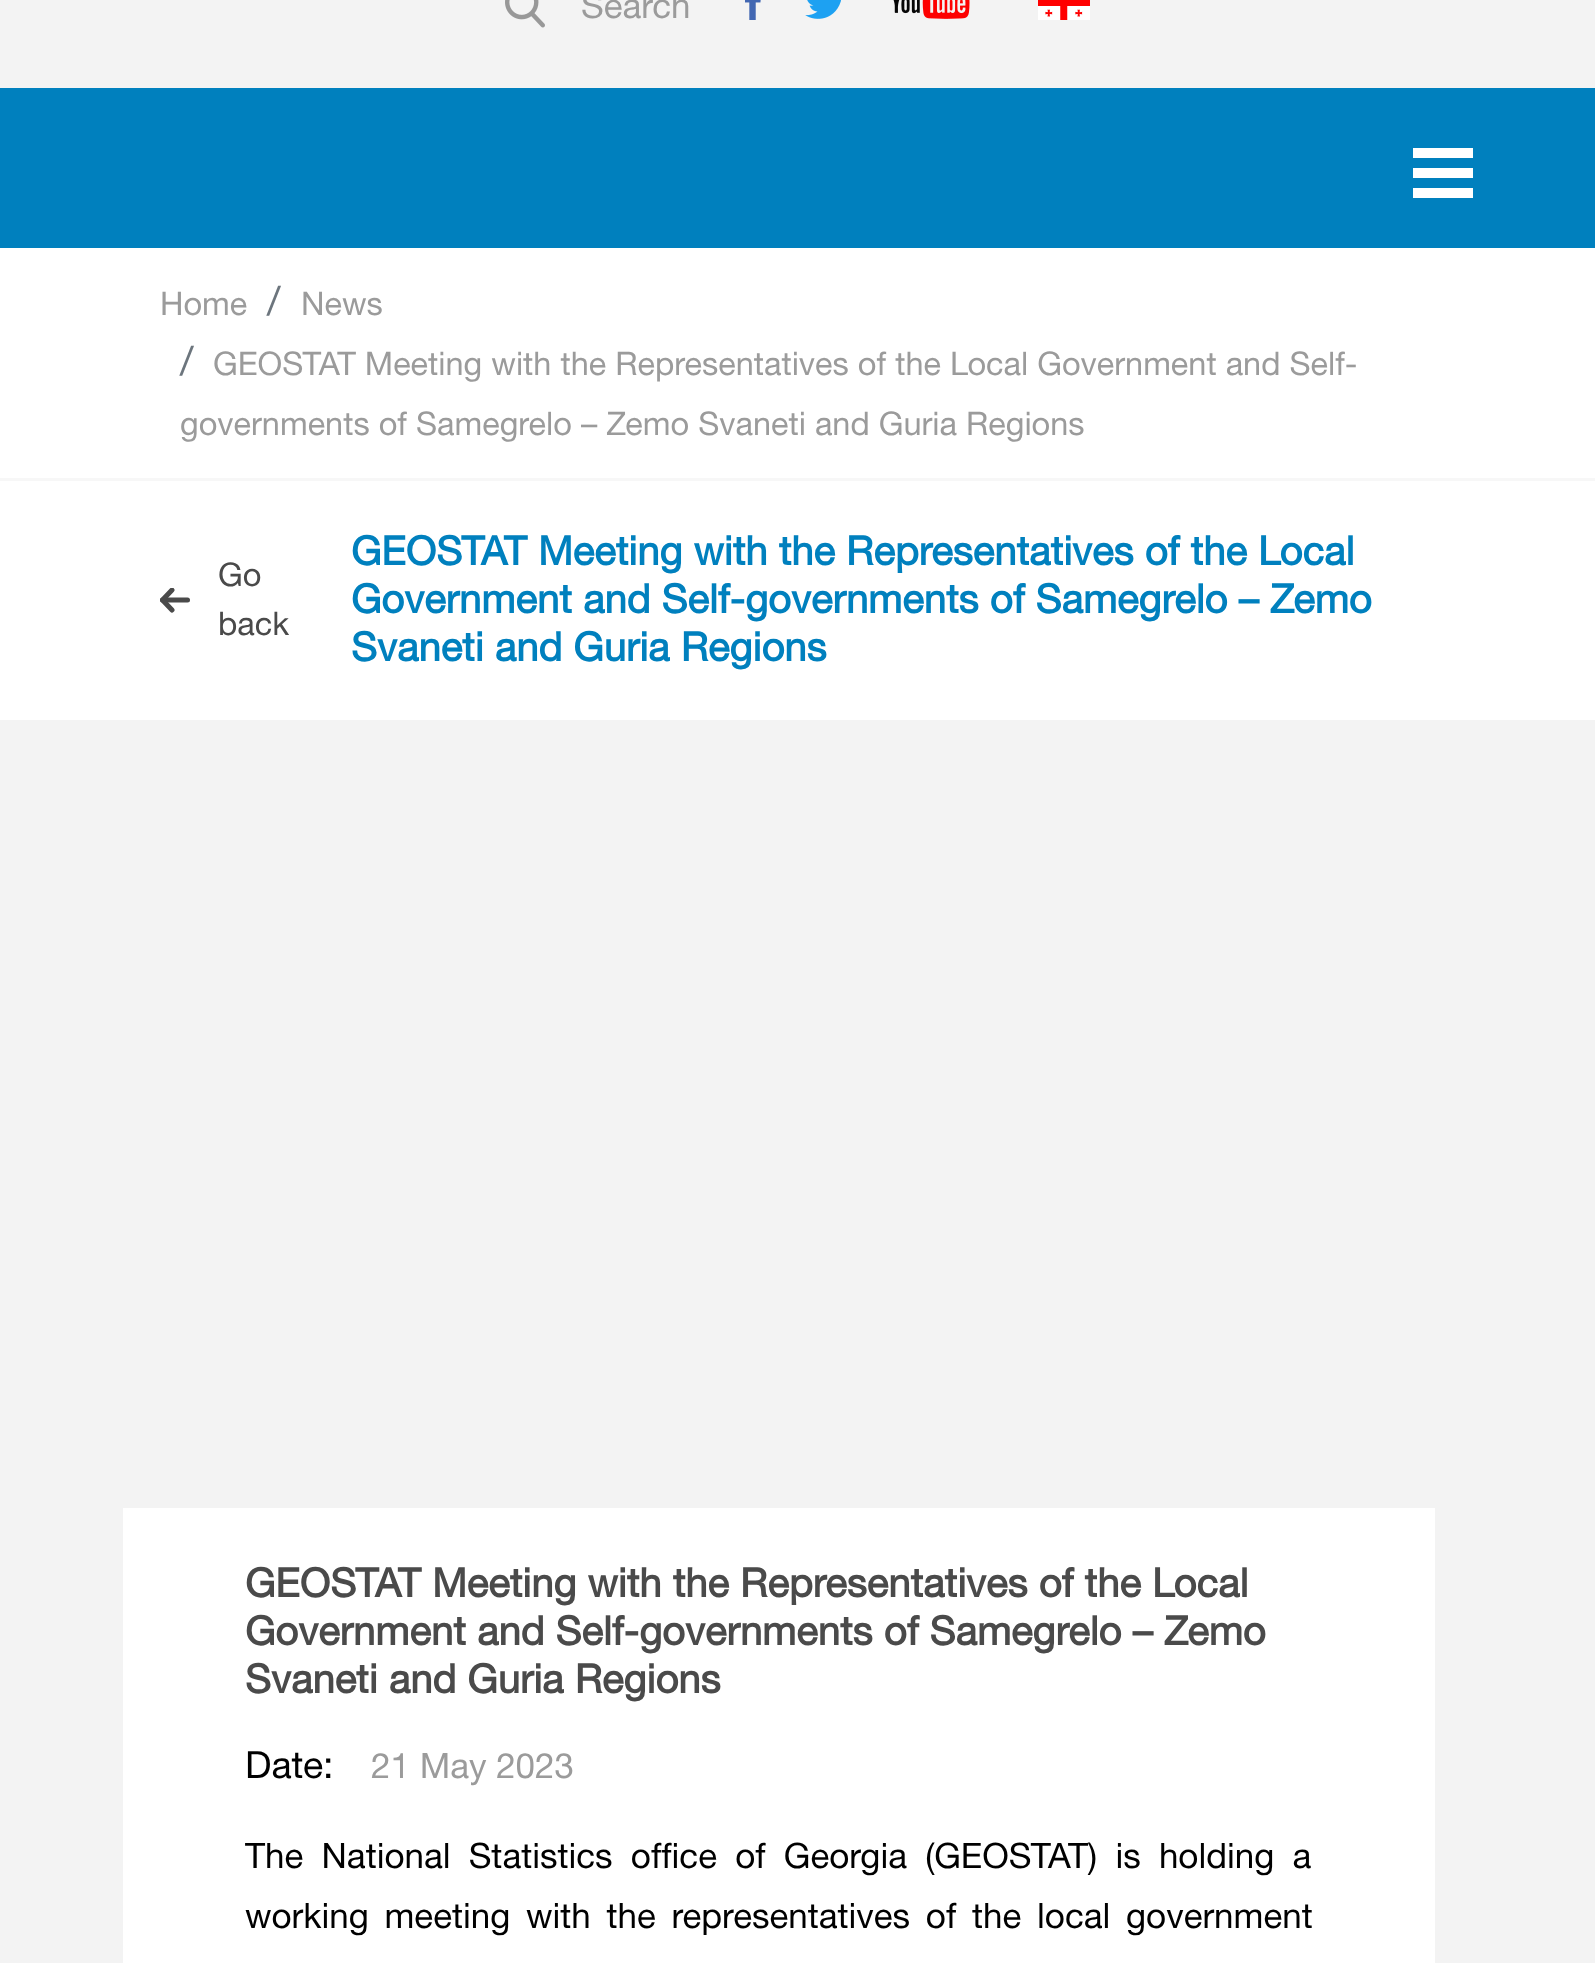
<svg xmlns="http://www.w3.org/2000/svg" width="1595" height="1963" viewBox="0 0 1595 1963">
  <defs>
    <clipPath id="clip1"><path d="M160 588h30v25H160z"/></clipPath>
  </defs>
  <rect width="100%" height="100%" fill="#f3f3f3"/>
  <image x="505" y="0" width="40" height="28" href="img/1.png"/>
  <image x="745" y="0" width="16" height="20" href="img/2.png"/>
  <image x="805" y="0" width="36" height="19" href="img/3.png"/>
  <image x="893" y="0" width="77" height="19" href="img/4.png"/>
  <image x="1038" y="0" width="52" height="20" href="img/5.png"/>
  <path d="M0 88h1595v160H0z" fill="#0080be"/>
  <path d="M1413 168h60v10H1413z" fill="#fff"/>
  <path d="M1413 148h60v10H1413z" fill="#fff"/>
  <path d="M1413 188h60v10H1413z" fill="#fff"/>
  <path d="M0 248h1595v472H0z" fill="#fff"/>
  <path d="M0 478h1595v3H0z" fill="#f7f7f7"/>
  <path d="M187.5 600H162.5" fill="none" stroke="#4a4a4a" stroke-width="5" stroke-linecap="round" stroke-linejoin="round"/>
  <g clip-path="url(#clip1)">
    <path d="M172 610L162.5 600L172 590" fill="none" stroke="#4a4a4a" stroke-width="5" stroke-linecap="round" stroke-linejoin="round"/>
  </g>
  <path d="M123 1508h1312v455H123z" fill="#fff"/>
  <text x="581" y="18" font-family="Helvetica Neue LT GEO" font-size="35" fill="#9b9b9b">Search</text>
  <text x="160" y="315" font-family="Helvetica Neue LT GEO" font-size="32.5" fill="#9b9b9b">Home</text>
  <text x="267" y="315" font-family="Helvetica Neue LT GEO" font-size="40" fill="#6c757d">/</text>
  <text x="301" y="315" font-family="Helvetica Neue LT GEO" font-size="32.5" fill="#9b9b9b">News</text>
  <text x="180" y="375" font-family="Helvetica Neue LT GEO" font-size="40" fill="#6c757d">/</text>
  <g font-family="Helvetica Neue LT GEO" font-size="32.5" fill="#9b9b9b">
    <text x="213" y="375">GEOSTAT Meeting with the Representatives of the Local Government and Self-</text>
    <text x="180" y="435">governments of Samegrelo – Zemo Svaneti and Guria Regions</text>
  </g>
  <g font-family="Helvetica Neue LT GEO" font-size="32.5" fill="#4a4a4a">
    <text x="218" y="586">Go</text>
    <text x="218" y="635">back</text>
  </g>
  <g font-family="Helvetica Neue LT GEO" font-size="40" font-weight="bold" fill="#0080be">
    <text x="351" y="565">GEOSTAT Meeting with the Representatives of the Local</text>
    <text x="351" y="613">Government and Self-governments of Samegrelo – Zemo</text>
    <text x="351" y="661">Svaneti and Guria Regions</text>
  </g>
  <g font-family="Helvetica Neue LT GEO" font-size="40" font-weight="bold" fill="#4a4a4a">
    <text x="245" y="1597">GEOSTAT Meeting with the Representatives of the Local</text>
    <text x="245" y="1645">Government and Self-governments of Samegrelo – Zemo</text>
    <text x="245" y="1693">Svaneti and Guria Regions</text>
  </g>
  <text x="245" y="1778" font-family="Helvetica Neue LT GEO" font-size="37.5" fill="#000">Date:</text>
  <text x="371" y="1778" font-family="Helvetica Neue LT GEO" font-size="35" fill="#9b9b9b">21 May 2023</text>
  <g font-family="Helvetica Neue LT GEO" font-size="35" fill="#000">
    <text x="245" y="1868" word-spacing="8.5">The National Statistics office of Georgia (GEOSTAT) is holding a</text>
    <text x="245" y="1928" word-spacing="6">working meeting with the representatives of the local government</text>
  </g>
</svg>
